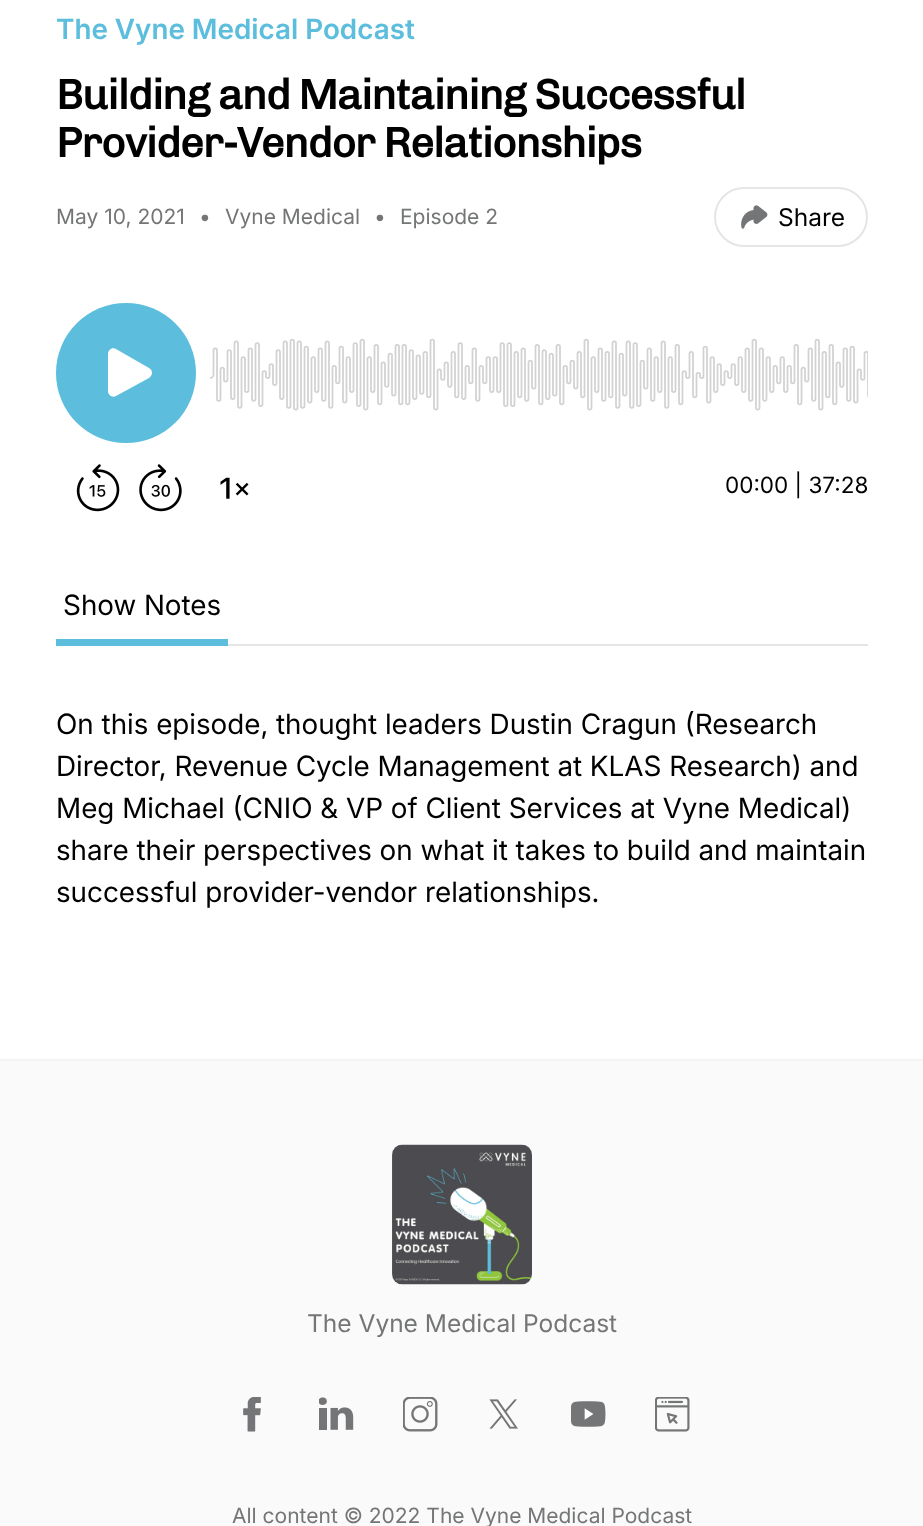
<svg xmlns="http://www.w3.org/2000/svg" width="923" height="1526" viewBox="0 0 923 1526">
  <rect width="100%" height="100%" fill="#fff"/>
  <rect x="715" y="188" width="152" height="58" rx="29" fill="none" stroke="#e4e5e6" stroke-width="2"/>
  <image x="741" y="205" width="27" height="24" href="img/1.png"/>
  <image x="76" y="464" width="44" height="48" href="img/2.png"/>
  <image x="139" y="464" width="43" height="48" href="img/3.png"/>
  <image x="220" y="477" width="29" height="22" href="img/4.png"/>
  <circle cx="126" cy="373" r="70" fill="#5cbedc"/>
  <path d="M108 354C108 350 112 347 116 349L149 368C153 370 153 375 149 378L116 396C112 398 108 395 108 391Z" fill="#fff" fill-rule="evenodd"/>
  <image x="210" y="338" width="658" height="73" href="img/5.png"/>
  <path d="M228 644h640v2H228z" fill="#e4e5e6"/>
  <path d="M56 639h172v7H56z" fill="#5cbedc"/>
  <path d="M0 1061h923v465H0z" fill="#fafafa"/>
  <path d="M0 1059h923v2H0z" fill="#f4f4f4"/>
  <image x="392" y="1144" width="140" height="141" href="img/6.png"/>
  <image x="243" y="1397" width="18" height="35" href="img/7.png"/>
  <image x="319" y="1397" width="35" height="33" href="img/8.png"/>
  <image x="403" y="1397" width="35" height="35" href="img/9.png"/>
  <image x="489" y="1399" width="29" height="30" href="img/10.png"/>
  <image x="571" y="1401" width="35" height="26" href="img/11.png"/>
  <image x="655" y="1397" width="35" height="35" href="img/12.png"/>
  <text x="56" y="39" font-family="Inter" font-size="28" font-weight="600" fill="#5cbedc">The Vyne Medical Podcast</text>
  <g font-family="Chivo" font-size="42" font-weight="bold" letter-spacing="-1.05" fill="#000">
    <text x="56" y="109">Building and Maintaining Successful</text>
    <text x="56" y="157">Provider-Vendor Relationships</text>
  </g>
  <g font-family="Inter" font-size="21" fill="#747576">
    <text x="56" y="224">May 10, 2021</text>
    <text x="199" y="224">•</text>
    <text x="225" y="224">Vyne Medical</text>
    <text x="374" y="224">•</text>
    <text x="400" y="224">Episode 2</text>
  </g>
  <text x="778" y="226" font-family="Inter" font-size="24.5" fill="#000">Share</text>
  <text x="725" y="493" font-family="Inter" font-size="22.5" fill="#000">00:00 | 37:28</text>
  <g font-family="'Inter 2'" font-size="28" fill="#000">
    <text x="63" y="615">Show Notes</text>
    <text x="56" y="734">On this episode, thought leaders Dustin Cragun (Research</text>
    <text x="56" y="776">Director, Revenue Cycle Management at KLAS Research) and</text>
    <text x="56" y="818">Meg Michael (CNIO &amp; VP of Client Services at Vyne Medical)</text>
    <text x="56" y="860">share their perspectives on what it takes to build and maintain</text>
    <text x="56" y="902">successful provider-vendor relationships.</text>
  </g>
  <text x="307" y="1332" font-family="Inter" font-size="24.5" fill="#747576">The Vyne Medical Podcast</text>
  <text x="232" y="1523" font-family="Inter" font-size="21" fill="#747576">All content © 2022 The Vyne Medical Podcast</text>
</svg>
